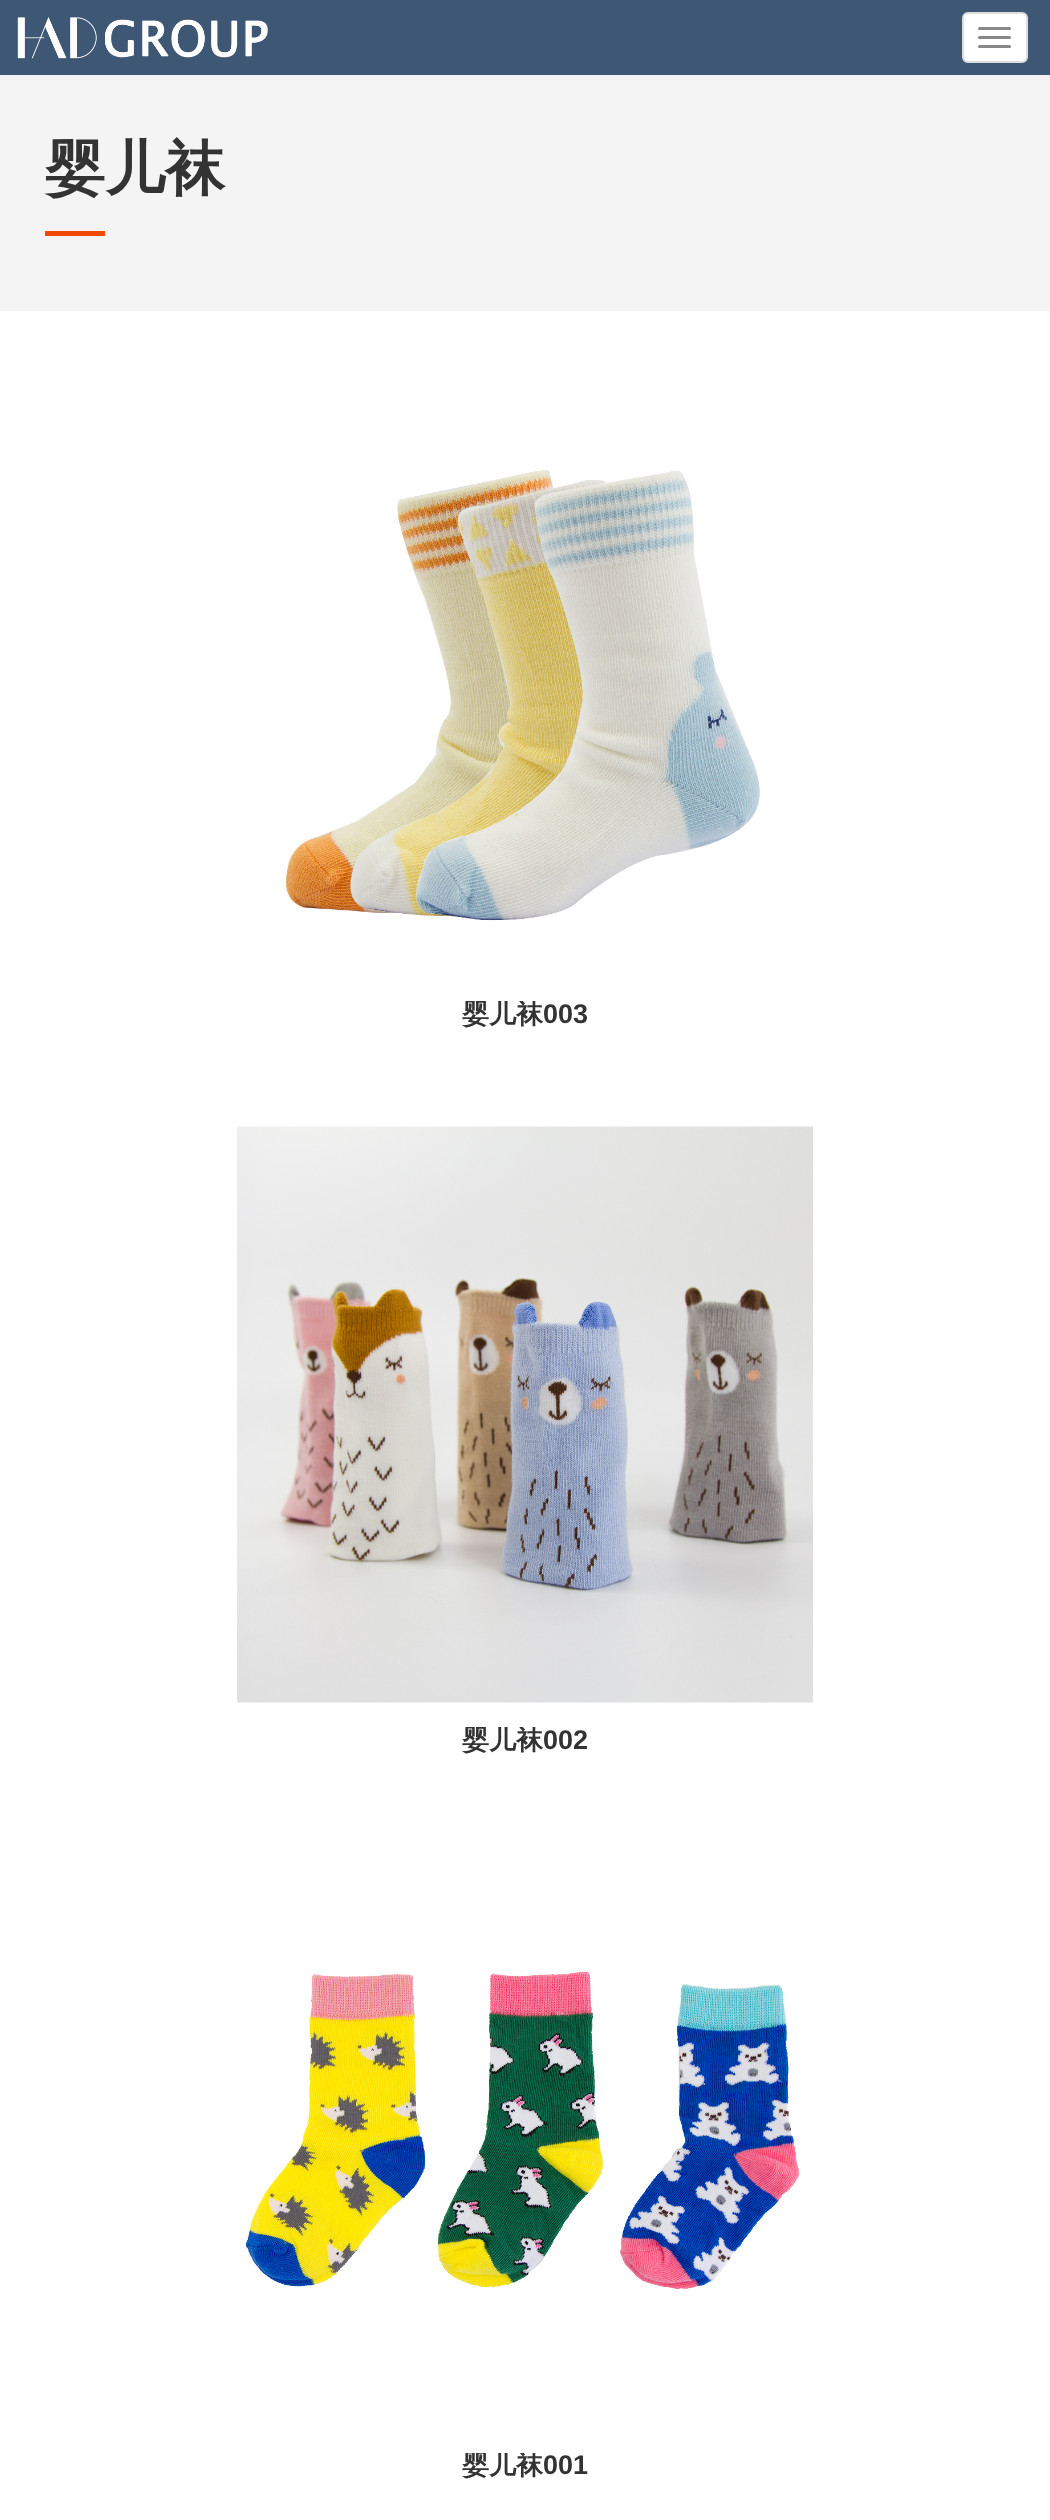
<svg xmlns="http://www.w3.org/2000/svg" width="1050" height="2520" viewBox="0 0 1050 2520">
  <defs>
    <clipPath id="clip1"><path d="M93 1001h864v30H93z"/></clipPath>
    <clipPath id="clip2"><path d="M93 1727h864v30H93z"/></clipPath>
    <clipPath id="clip3"><path d="M93 2453h864v28H93z"/></clipPath>
  </defs>
  <rect width="100%" height="100%" fill="#fff"/>
  <path d="M0 0h1050v75H0z" fill="#3e5774"/>
  <image x="17" y="17" width="251" height="42" href="img/1.png"/>
  <rect x="963" y="13" width="64" height="49" rx="5" fill="#fff" stroke="#ddd" stroke-width="2"/>
  <rect x="978" y="27" width="33" height="3" rx="1.5" fill="#888"/>
  <rect x="978" y="36" width="33" height="3" rx="1.5" fill="#888"/>
  <rect x="978" y="45" width="33" height="3" rx="1.5" fill="#888"/>
  <path d="M0 75h1050v236H0z" fill="#f4f4f4"/>
  <path d="M45 231h60v5H45z" fill="#f14908"/>
  <image x="285" y="470" width="475" height="451" href="img/2.png"/>
  <image x="237" y="1126" width="576" height="577" href="img/3.png"/>
  <image x="246" y="1971" width="554" height="318" href="img/4.png"/>
  <text x="45" y="189" font-family="WenQuanYi Zen Hei" font-size="60" font-weight="bold" fill="#333">婴儿袜</text>
  <g clip-path="url(#clip1)">
    <text x="462" y="1023" font-family="WenQuanYi Zen Hei" font-size="27" font-weight="bold" fill="#333">婴儿袜</text>
  </g>
  <text x="543" y="1023" font-family="Liberation Sans" font-size="27" font-weight="bold" fill="#333">003</text>
  <g clip-path="url(#clip2)">
    <text x="462" y="1749" font-family="WenQuanYi Zen Hei" font-size="27" font-weight="bold" fill="#333">婴儿袜</text>
  </g>
  <text x="543" y="1749" font-family="Liberation Sans" font-size="27" font-weight="bold" fill="#333">002</text>
  <g clip-path="url(#clip3)">
    <text x="462" y="2474" font-family="WenQuanYi Zen Hei" font-size="27" font-weight="bold" fill="#333">婴儿袜</text>
  </g>
  <text x="543" y="2474" font-family="Liberation Sans" font-size="27" font-weight="bold" fill="#333">001</text>
</svg>
